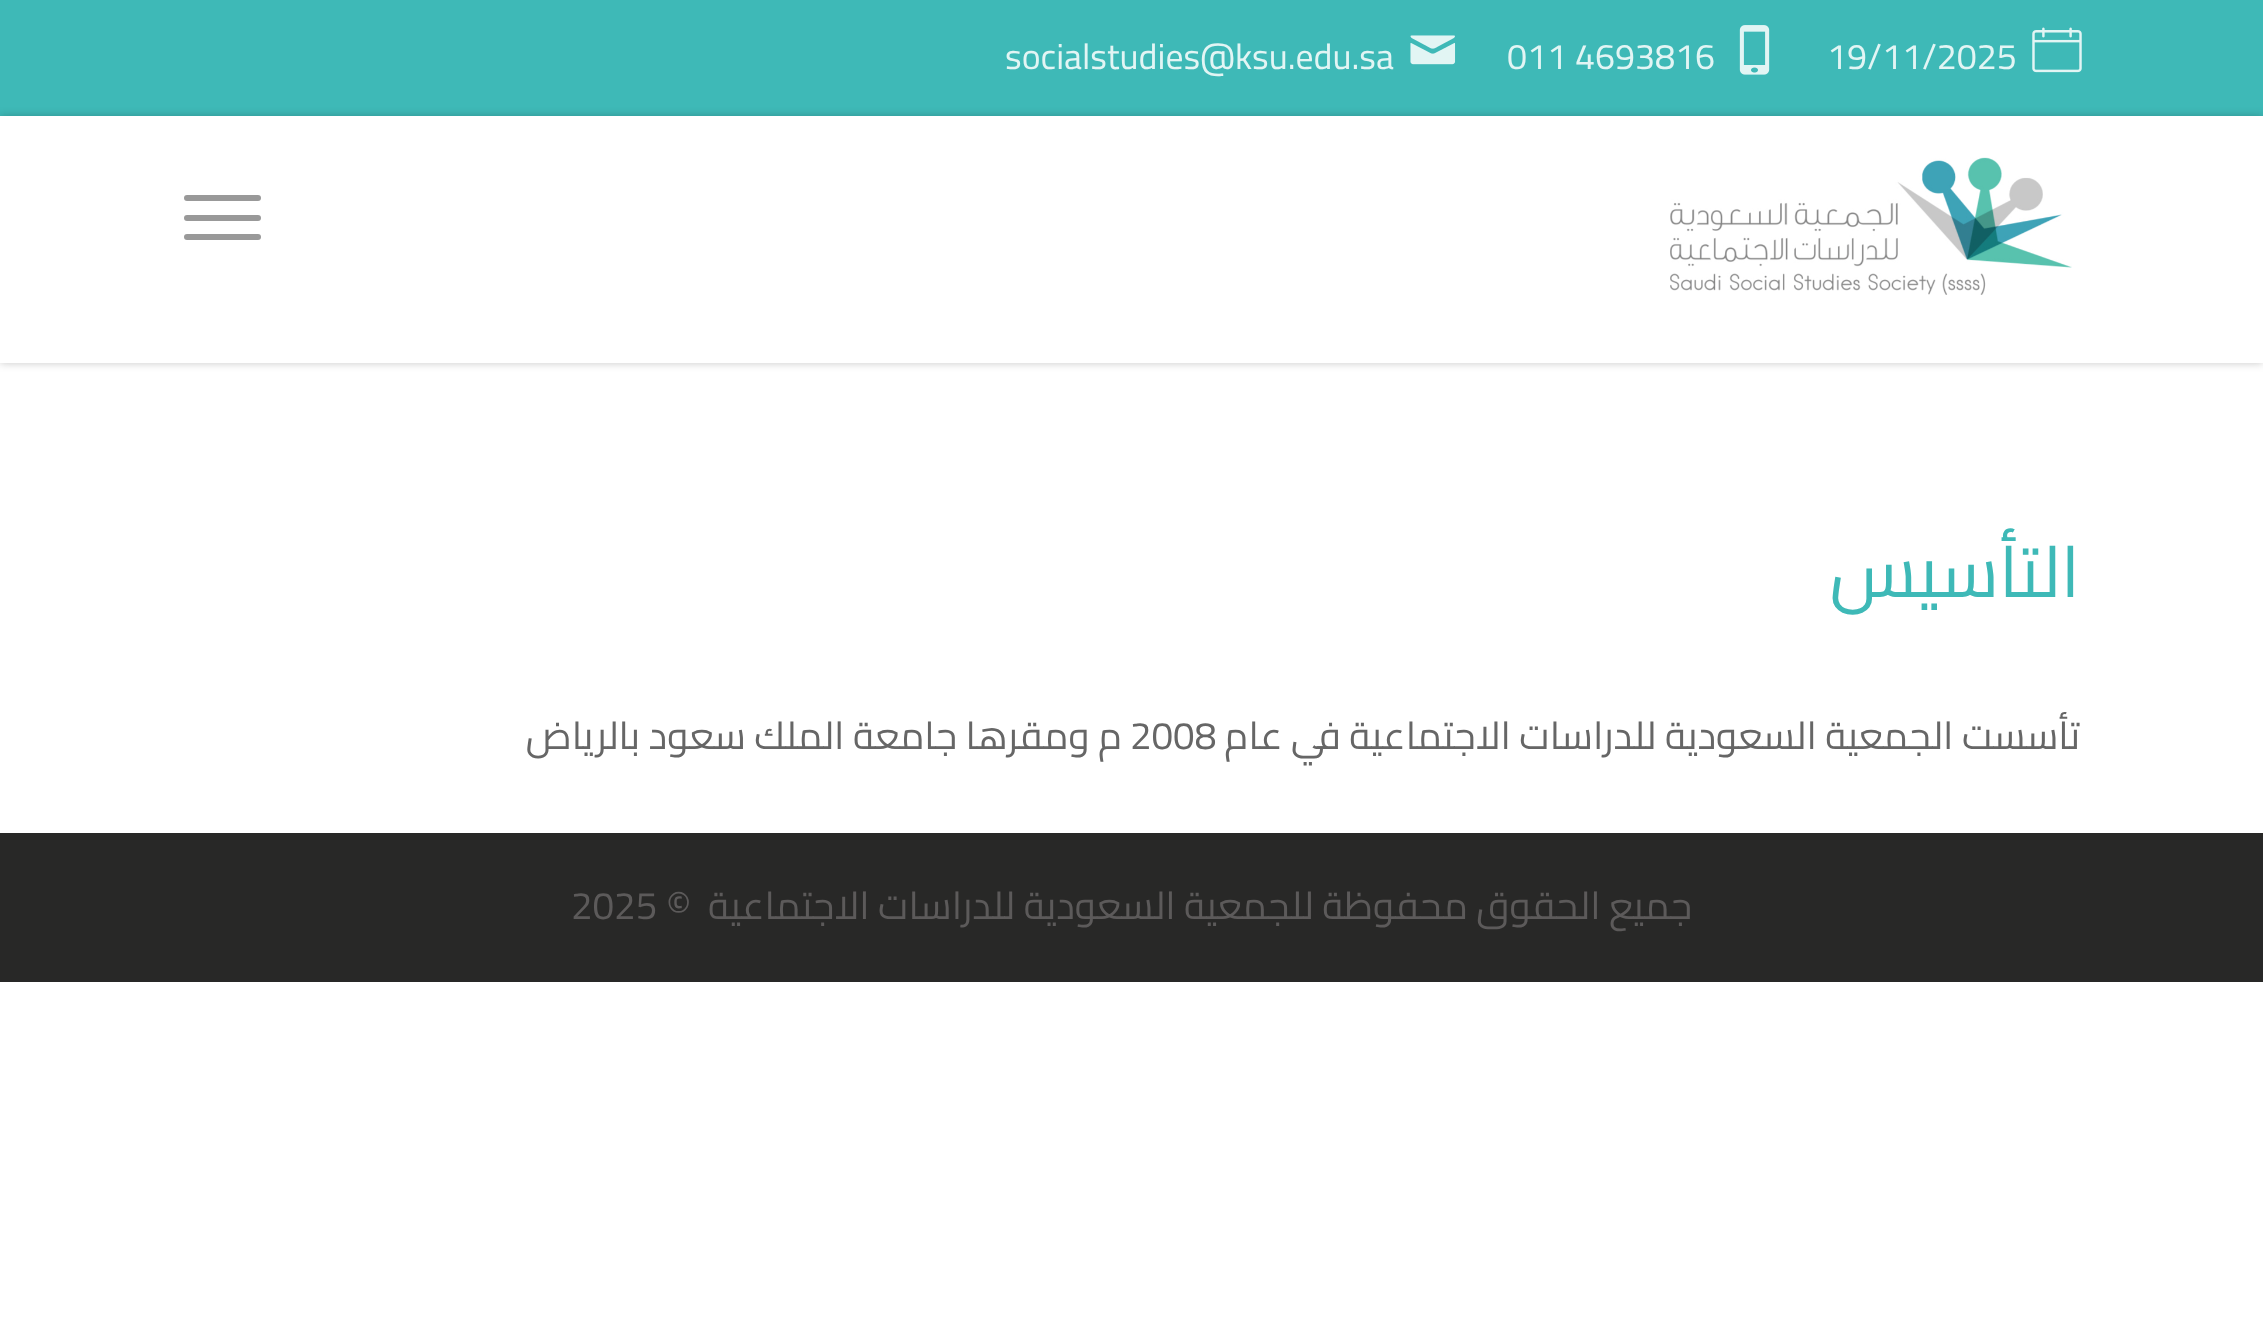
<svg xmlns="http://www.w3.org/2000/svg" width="2263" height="1323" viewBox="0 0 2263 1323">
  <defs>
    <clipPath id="clip1"><path d="M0 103H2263V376H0ZM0 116H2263V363H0Z" clip-rule="evenodd"/></clipPath>
  </defs>
  <rect width="100%" height="100%" fill="#fff"/>
  <path d="M0 0h2263v116H0z" fill="#3eb9b7"/>
  <image x="2032" y="27" width="50" height="46" href="img/1.png"/>
  <image x="1739" y="25" width="31" height="50" href="img/2.png"/>
  <image x="1410" y="35" width="46" height="30" href="img/3.png"/>
  <g clip-path="url(#clip1)">
    <path d="M0 116h2263v247H0z" fill="#00000038" filter="blur(4px)"/>
  </g>
  <image x="1670" y="157" width="402" height="138" href="img/4.png"/>
  <rect x="184" y="234" width="77" height="6" rx="3" fill="#999"/>
  <rect x="184" y="195" width="77" height="6" rx="3" fill="#999"/>
  <rect x="184" y="215" width="77" height="6" rx="3" fill="#999"/>
  <path d="M0 833h2263v149H0z" fill="#282827"/>
  <g font-family="Cairo" font-size="35.75" fill="#e2f5f4">
    <text x="1827" y="69">19/11/2025</text>
    <text x="1507" y="69">011 4693816</text>
    <text x="1005" y="69">socialstudies@ksu.edu.sa</text>
  </g>
  <text x="2080" y="597" font-family="Cairo" font-size="71.5" direction="rtl" fill="#3eb9b7">التأسيس</text>
  <text x="2080" y="749" font-family="Cairo" font-size="38.5" direction="rtl" fill="#666">تأسست الجمعية السعودية للدراسات الاجتماعية في عام</text>
  <text x="1130" y="749" font-family="Cairo" font-size="38.5" fill="#666">2008</text>
  <text x="1122" y="749" font-family="Cairo" font-size="38.5" direction="rtl" fill="#666">م ومقرها جامعة الملك سعود بالرياض</text>
  <text x="1692" y="919" font-family="Cairo" font-size="38.5" direction="rtl" fill="#5c5a5a" xml:space="preserve">جميع الحقوق محفوظة للجمعية السعودية للدراسات الاجتماعية  ©</text>
  <text x="571" y="919" font-family="Cairo" font-size="38.5" fill="#5c5a5a">2025</text>
</svg>
